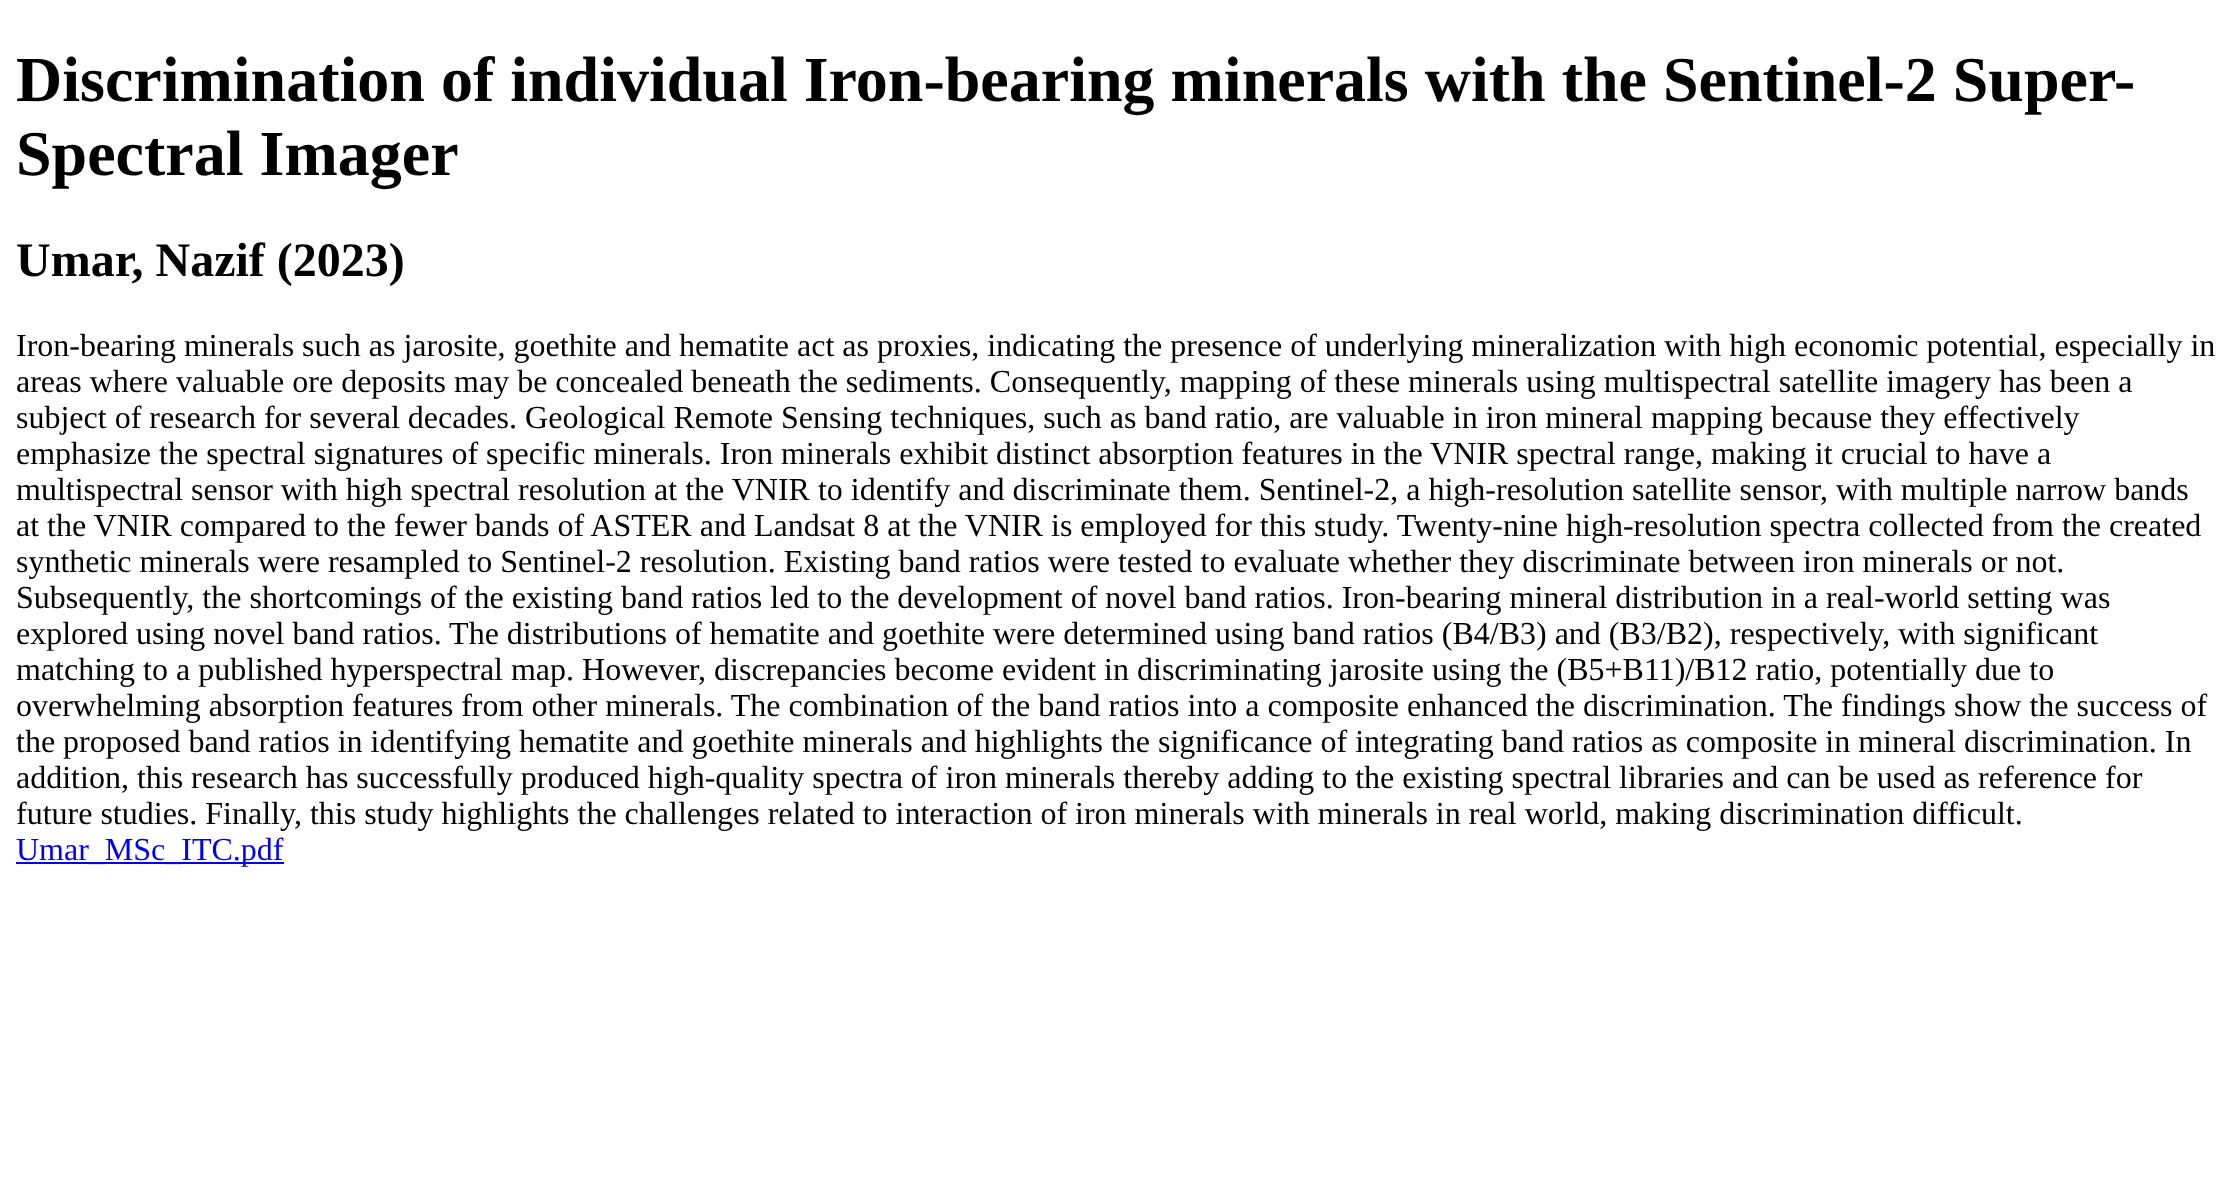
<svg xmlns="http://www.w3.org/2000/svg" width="2233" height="1187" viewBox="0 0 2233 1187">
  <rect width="100%" height="100%" fill="#fff"/>
  <path d="M16 862h268v2H16z" fill="#00e"/>
  <g font-family="Liberation Serif" font-size="64" font-weight="bold" fill="#000">
    <text x="16" y="101">Discrimination of individual Iron-bearing minerals with the Sentinel-2 Super-</text>
    <text x="16" y="175">Spectral Imager</text>
  </g>
  <text x="16" y="276" font-family="Liberation Serif" font-size="48" font-weight="bold" fill="#000">Umar, Nazif (2023)</text>
  <g font-family="Liberation Serif" font-size="32" fill="#000">
    <text x="16" y="356">Iron-bearing minerals such as jarosite, goethite and hematite act as proxies, indicating the presence of underlying mineralization with high economic potential, especially in</text>
    <text x="16" y="392">areas where valuable ore deposits may be concealed beneath the sediments. Consequently, mapping of these minerals using multispectral satellite imagery has been a</text>
    <text x="16" y="428">subject of research for several decades. Geological Remote Sensing techniques, such as band ratio, are valuable in iron mineral mapping because they effectively</text>
    <text x="16" y="464">emphasize the spectral signatures of specific minerals. Iron minerals exhibit distinct absorption features in the VNIR spectral range, making it crucial to have a</text>
    <text x="16" y="500">multispectral sensor with high spectral resolution at the VNIR to identify and discriminate them. Sentinel-2, a high-resolution satellite sensor, with multiple narrow bands</text>
    <text x="16" y="536">at the VNIR compared to the fewer bands of ASTER and Landsat 8 at the VNIR is employed for this study. Twenty-nine high-resolution spectra collected from the created</text>
    <text x="16" y="572">synthetic minerals were resampled to Sentinel-2 resolution. Existing band ratios were tested to evaluate whether they discriminate between iron minerals or not.</text>
    <text x="16" y="608">Subsequently, the shortcomings of the existing band ratios led to the development of novel band ratios. Iron-bearing mineral distribution in a real-world setting was</text>
    <text x="16" y="644">explored using novel band ratios. The distributions of hematite and goethite were determined using band ratios (B4/B3) and (B3/B2), respectively, with significant</text>
    <text x="16" y="680">matching to a published hyperspectral map. However, discrepancies become evident in discriminating jarosite using the (B5+B11)/B12 ratio, potentially due to</text>
    <text x="16" y="716">overwhelming absorption features from other minerals. The combination of the band ratios into a composite enhanced the discrimination. The findings show the success of</text>
    <text x="16" y="752">the proposed band ratios in identifying hematite and goethite minerals and highlights the significance of integrating band ratios as composite in mineral discrimination. In</text>
    <text x="16" y="788">addition, this research has successfully produced high-quality spectra of iron minerals thereby adding to the existing spectral libraries and can be used as reference for</text>
    <text x="16" y="824">future studies. Finally, this study highlights the challenges related to interaction of iron minerals with minerals in real world, making discrimination difficult.</text>
  </g>
  <text x="16" y="860" font-family="Liberation Serif" font-size="32" fill="#00e">Umar_MSc_ITC.pdf</text>
</svg>
